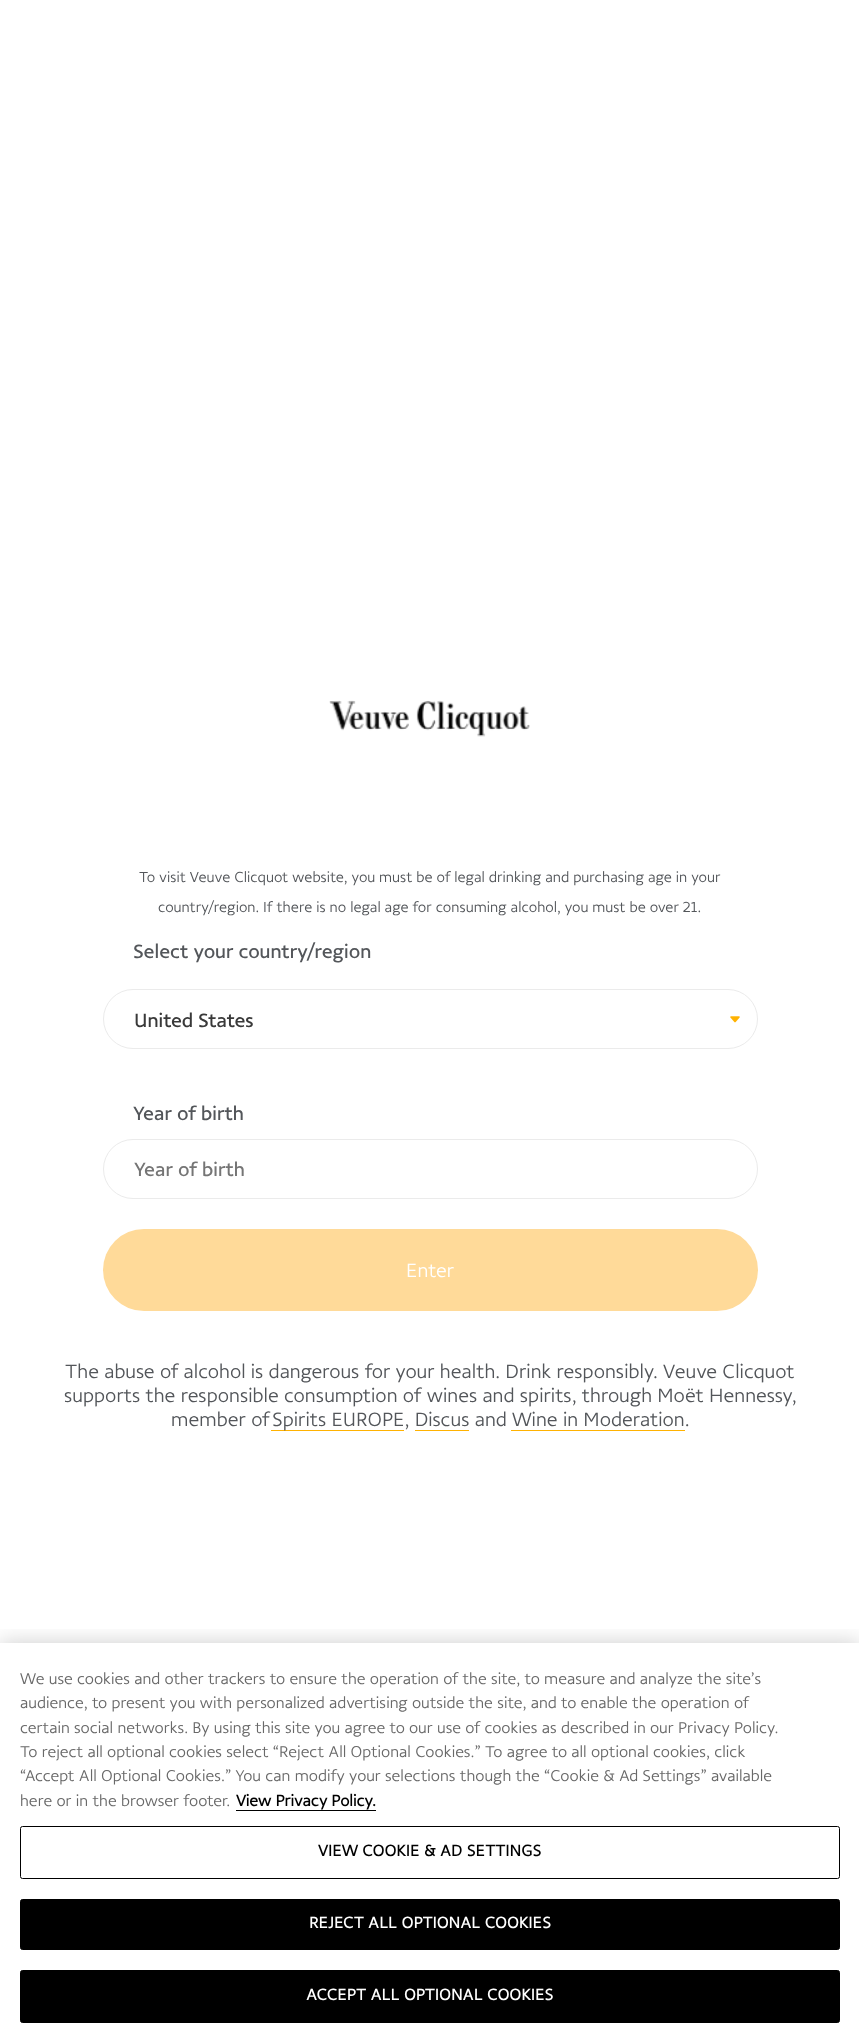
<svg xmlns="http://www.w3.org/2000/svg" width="859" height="2042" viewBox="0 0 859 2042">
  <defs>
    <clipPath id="clip1"><path d="M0 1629h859v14H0z"/></clipPath>
  </defs>
  <rect width="100%" height="100%" fill="#fff"/>
  <image x="329" y="700" width="201" height="37" href="img/1.png"/>
  <rect x="103.5" y="989.5" width="654" height="59" rx="29.5" fill="none" stroke="#ebebeb"/>
  <image x="730" y="1016" width="10" height="7" href="img/2.png"/>
  <rect x="103.5" y="1139.5" width="654" height="59" rx="29.5" fill="none" stroke="#ebebeb"/>
  <rect x="103" y="1229" width="655" height="82" rx="41" fill="#ffda99"/>
  <path d="M271 1430h133v1H271z" fill="#ffb201"/>
  <g clip-path="url(#clip1)">
    <path d="M0 1643h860v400H0z" fill="#00000033" filter="blur(11px)"/>
  </g>
  <path d="M236 1810h140v1H236z" fill="#000"/>
  <rect x="20.5" y="1826.5" width="819" height="52" rx="2" fill="none" stroke="#000"/>
  <rect x="20.5" y="1899.5" width="819" height="50" rx="2" fill="#000" stroke="#000"/>
  <rect x="20.5" y="1970.5" width="819" height="52" rx="2" fill="#000" stroke="#000"/>
  <g font-family="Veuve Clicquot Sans" font-size="15" font-weight="300" fill="#53565a">
    <text x="139" y="882">To visit Veuve Clicquot website, you must be of legal drinking and purchasing age in your</text>
    <text x="158" y="912">country/region. If there is no legal age for consuming alcohol, you must be over 21.</text>
  </g>
  <text x="133" y="958" font-family="Veuve Clicquot Sans" font-size="20" fill="#53565a">Select your country/region</text>
  <text x="134" y="1027" font-family="Veuve Clicquot Sans" font-size="20" fill="#393939">United States</text>
  <text x="133" y="1120" font-family="Veuve Clicquot Sans" font-size="20" fill="#53565a">Year of birth</text>
  <text x="134" y="1176" font-family="Veuve Clicquot Sans" font-size="20" fill="#757575">Year of birth</text>
  <text x="406" y="1277" font-family="Veuve Clicquot Sans" font-size="20" font-weight="300" fill="#fff">Enter</text>
  <g font-family="Veuve Clicquot Sans" font-size="20" font-weight="300" fill="#53565a">
    <text x="65" y="1378">The abuse of alcohol is dangerous for your health. Drink responsibly. Veuve Clicquot</text>
    <text x="64" y="1402">supports the responsible consumption of wines and spirits, through Moët Hennessy,</text>
    <text x="171" y="1426">member of</text>
    <text x="272" y="1426">Spirits EUROPE, Discus and Wine in Moderation.</text>
  </g>
  <path d="M415 1430h54v1H415z" fill="#ffb201"/>
  <path d="M511 1430h174v1H511z" fill="#ffb201"/>
  <g font-family="Veuve Clicquot Sans" font-size="16.25" font-weight="300" fill="#696969">
    <text x="20" y="1684">We use cookies and other trackers to ensure the operation of the site, to measure and analyze the site’s</text>
    <text x="20" y="1708">audience, to present you with personalized advertising outside the site, and to enable the operation of</text>
    <text x="20" y="1733">certain social networks. By using this site you agree to our use of cookies as described in our Privacy Policy.</text>
    <text x="20" y="1757">To reject all optional cookies select “Reject All Optional Cookies.” To agree to all optional cookies, click</text>
    <text x="20" y="1781">“Accept All Optional Cookies.” You can modify your selections though the “Cookie &amp; Ad Settings” available</text>
    <text x="20" y="1806">here or in the browser footer.</text>
  </g>
  <text x="236" y="1806" font-family="Veuve Clicquot Sans" font-size="16.25" font-weight="bold" fill="#000">View Privacy Policy.</text>
  <text x="318" y="1856" font-family="Veuve Clicquot Sans" font-size="16.25" font-weight="bold" letter-spacing="0.15" fill="#000">VIEW COOKIE &amp; AD SETTINGS</text>
  <g font-family="Veuve Clicquot Sans" font-size="16.25" font-weight="bold" letter-spacing="0.15" fill="#fff">
    <text x="309" y="1928">REJECT ALL OPTIONAL COOKIES</text>
    <text x="306" y="2000">ACCEPT ALL OPTIONAL COOKIES</text>
  </g>
</svg>
